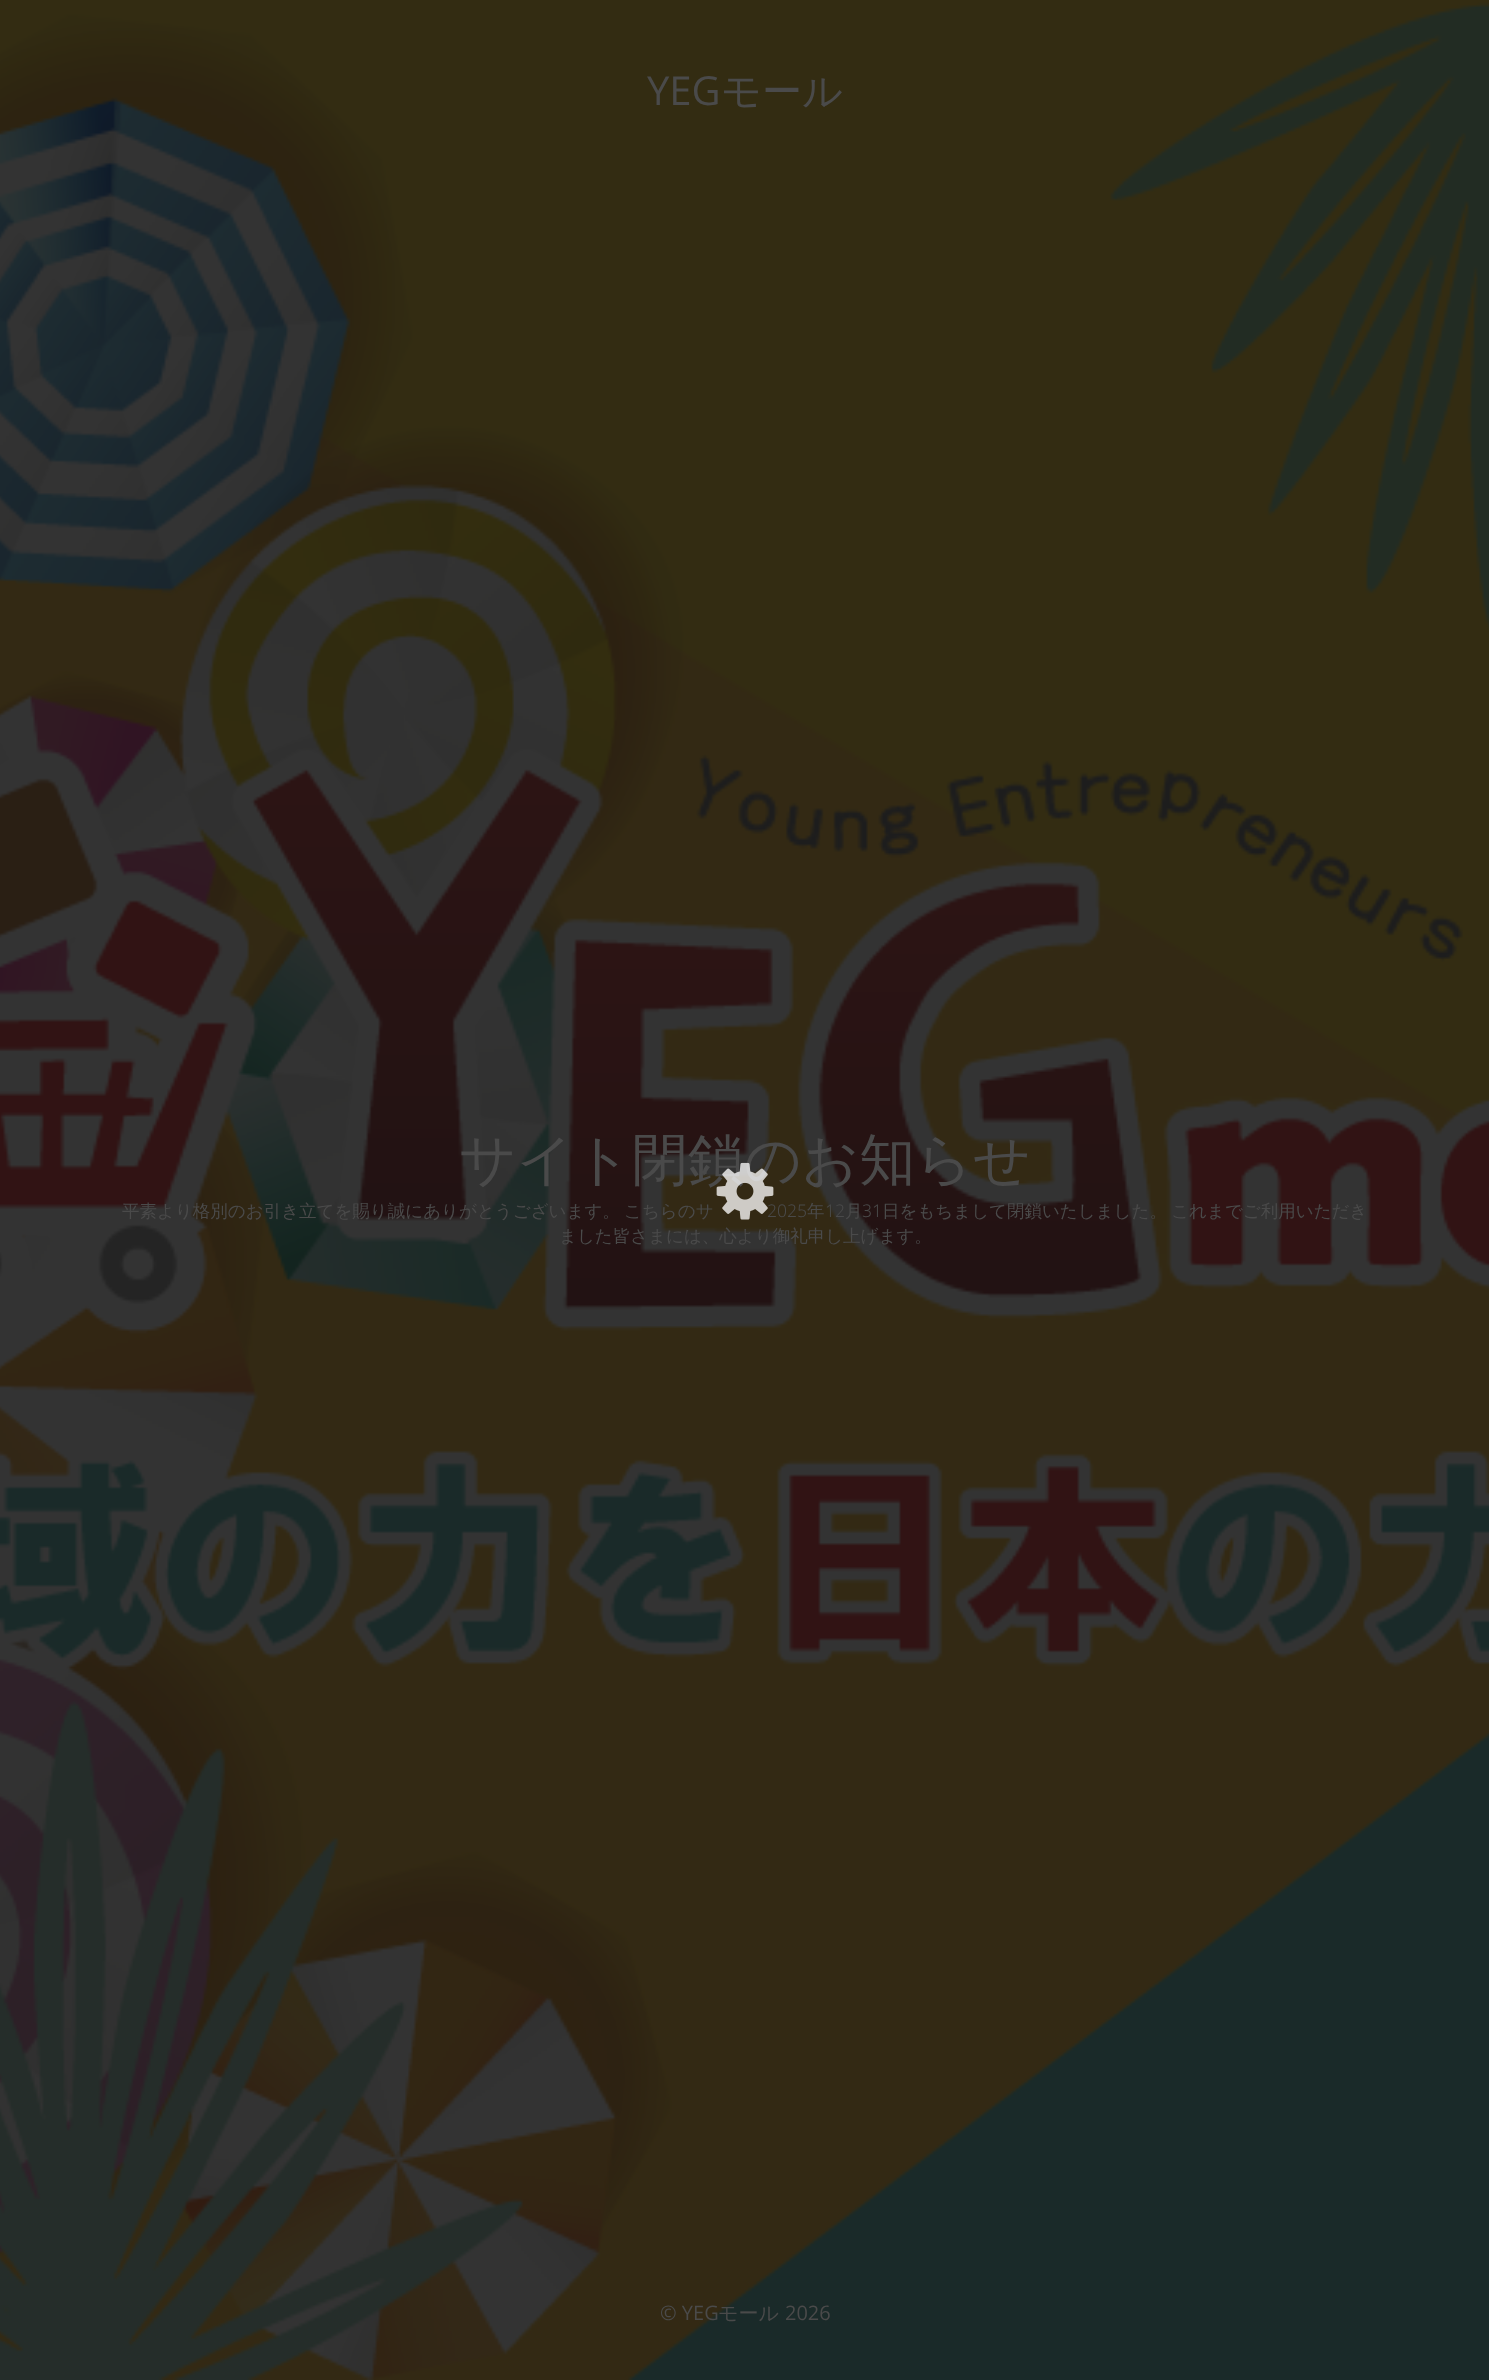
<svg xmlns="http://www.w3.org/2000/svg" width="1489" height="2380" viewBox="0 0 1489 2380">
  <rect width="100%" height="100%" fill="#fff"/>
  <image x="0" y="0" width="1489" height="2380" href="img/1.png"/>
  <text x="647" y="105" font-family="Open Sans" font-size="40" fill="#4a4a4a">YEG</text>
  <text x="721" y="105" font-family="WenQuanYi Zen Hei" font-size="40" font-weight="500" fill="#4a4a4a">モール</text>
  <text x="459" y="1179" font-family="WenQuanYi Zen Hei" font-size="56.25" font-weight="500" fill="#4a4a4a">サイト閉鎖のお知らせ</text>
  <text x="122" y="1217" word-spacing="-1" font-family="WenQuanYi Zen Hei" font-size="17.5" font-weight="500" fill="#4a4a4a">平素より格別のお引き立てを賜り誠にありがとうございます。 こちらのサ</text>
  <text x="767" y="1217" font-family="Noto Sans" font-size="17.5" font-weight="300" fill="#4a4a4a">2025</text>
  <text x="807" y="1217" font-family="WenQuanYi Zen Hei" font-size="17.5" font-weight="500" fill="#4a4a4a">年</text>
  <text x="825" y="1217" font-family="Noto Sans" font-size="17.5" font-weight="300" fill="#4a4a4a">12</text>
  <text x="845" y="1217" font-family="WenQuanYi Zen Hei" font-size="17.5" font-weight="500" fill="#4a4a4a">月</text>
  <text x="862" y="1217" font-family="Noto Sans" font-size="17.5" font-weight="300" fill="#4a4a4a">31</text>
  <g font-family="WenQuanYi Zen Hei" font-size="17.5" font-weight="500" fill="#4a4a4a">
    <text x="882" y="1217" word-spacing="-1">日をもちまして閉鎖いたしました。 これまでご利用いただき</text>
    <text x="559" y="1242">ました皆さまには、心より御礼申し上げます。</text>
  </g>
  <image x="716" y="1162" width="58" height="58" href="img/2.png"/>
  <text x="660" y="2320" font-family="Open Sans" font-size="20" fill="#4a4a4a">© YEG</text>
  <text x="718" y="2320" font-family="WenQuanYi Zen Hei" font-size="20" font-weight="500" fill="#4a4a4a">モール</text>
  <text x="785" y="2320" font-family="Open Sans" font-size="20" fill="#4a4a4a">2026</text>
</svg>
